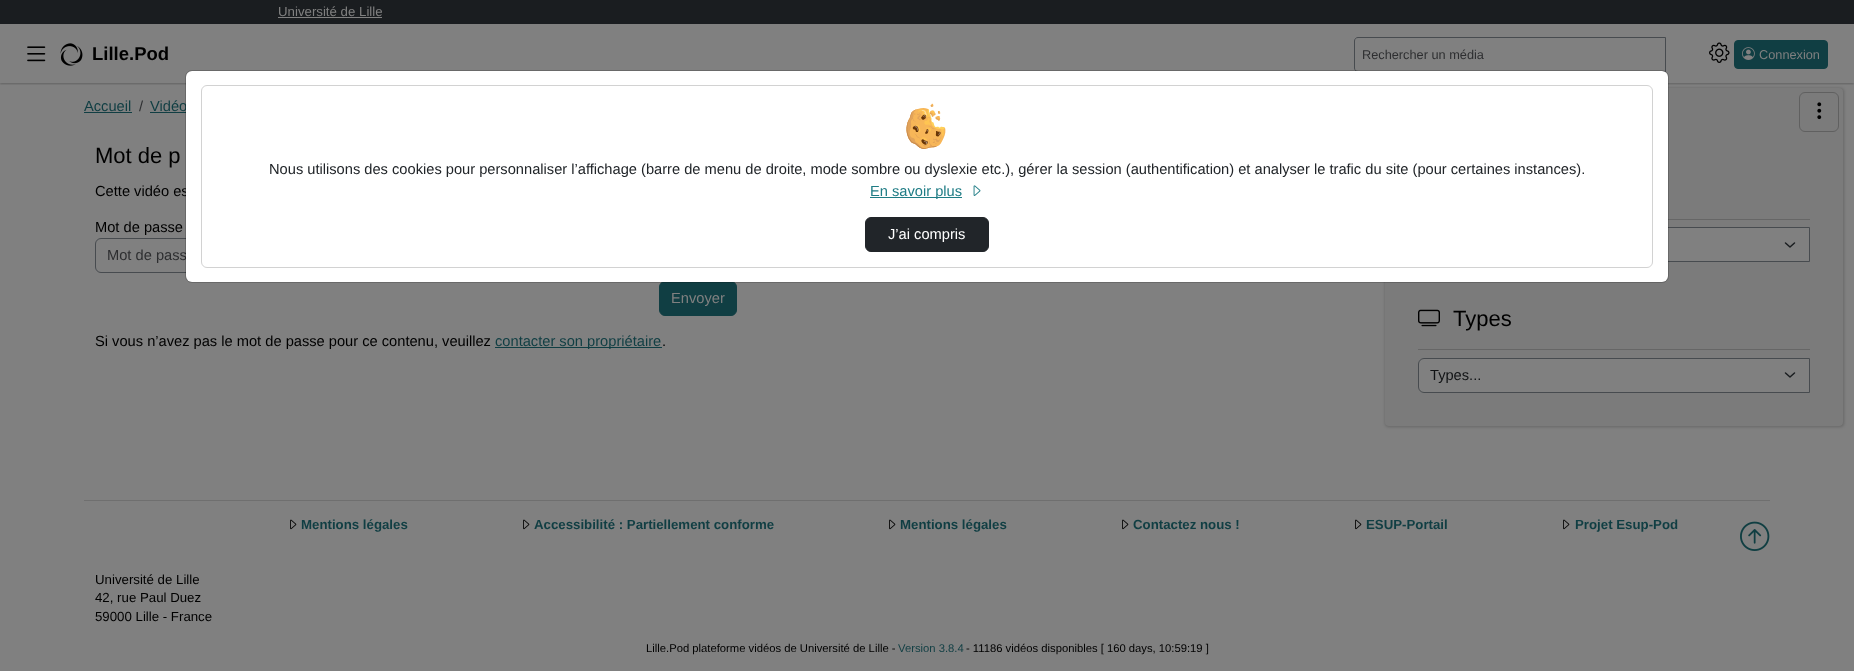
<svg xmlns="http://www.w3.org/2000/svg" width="1854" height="671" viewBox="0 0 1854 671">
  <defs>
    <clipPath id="clip1"><path d="M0 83h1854v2H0z"/></clipPath>
  </defs>
  <rect width="100%" height="100%" fill="#808080"/>
  <path d="M0 0h1854v24H0z" fill="#1a1d20"/>
  <path d="M278 17h104v1H278z" fill="#808080"/>
  <g clip-path="url(#clip1)">
    <path d="M0 26h1854v58H0z" fill="#0000003d" filter="blur(1px)"/>
  </g>
  <image x="27" y="46" width="19" height="16" href="img/1.png"/>
  <image x="60" y="43" width="23" height="23" href="img/2.png"/>
  <path d="M1358 37.5H1665.5V71.5H1358C1356 71.5 1354.5 70 1354.5 68V41C1354.5 39 1356 37.5 1358 37.5Z" fill="none" stroke="#474b4f"/>
  <image x="1709" y="42" width="21" height="21" href="img/3.png"/>
  <rect x="1734.5" y="40.5" width="93" height="28" rx="3.5" fill="#103e43" stroke="#103e43"/>
  <image x="1742" y="47" width="13" height="13" href="img/4.png"/>
  <path d="M84 112h48v1H84z" fill="#103e43"/>
  <path d="M150 112h36v1H150z" fill="#103e43"/>
  <rect x="95.5" y="238.5" width="1205" height="34" rx="5.5" fill="none" stroke="#474b4f"/>
  <rect x="659.5" y="281.5" width="77" height="34" rx="5.5" fill="#103e43" stroke="#103e43"/>
  <path d="M495 347h167v1H495z" fill="#103e43"/>
  <rect x="1385" y="88" width="459" height="339" rx="4" fill="#00000033" filter="blur(1.5px)"/>
  <rect x="1385" y="88" width="458" height="338" rx="4" fill="#7b7b7b"/>
  <path d="M1668 219h142v1H1668z" fill="#666"/>
  <path d="M1668 228h141v33H1668z" fill="#808080"/>
  <path d="M1785.5 243L1790 247L1794.5 243" fill="none" stroke="#1a1d20" stroke-width="1.5" stroke-linecap="round" stroke-linejoin="round"/>
  <path d="M1418.5 227.5h391v34H1418.5z" fill="none" stroke="#474b4f"/>
  <image x="1418" y="309" width="22" height="18" href="img/5.png"/>
  <path d="M1418 349h392v1H1418z" fill="#666"/>
  <path d="M1424 358H1810V393H1424C1420.5 393 1418 390.5 1418 387V364C1418 360.5 1420.5 358 1424 358Z" fill="#808080"/>
  <path d="M1785.5 373L1790 377L1794.5 373" fill="none" stroke="#1a1d20" stroke-width="1.5" stroke-linecap="round" stroke-linejoin="round"/>
  <path d="M1424 358.5H1809.5V392.5H1424C1421 392.5 1418.5 390 1418.5 387V364C1418.5 361 1421 358.5 1424 358.5Z" fill="none" stroke="#474b4f"/>
  <rect x="1799.5" y="92.5" width="39" height="39" rx="5.5" fill="none" stroke="#606060"/>
  <image x="1817" y="102" width="5" height="18" href="img/6.png"/>
  <path d="M84 500h1686v1H84z" fill="#6f6f6f"/>
  <image x="290" y="519" width="7" height="11" href="img/9.png"/>
  <image x="523" y="519" width="7" height="11" href="img/9.png"/>
  <image x="889" y="519" width="7" height="11" href="img/9.png"/>
  <image x="1122" y="519" width="7" height="11" href="img/9.png"/>
  <image x="1355" y="519" width="7" height="11" href="img/9.png"/>
  <image x="1563" y="519" width="7" height="11" href="img/9.png"/>
  <image x="1740" y="521" width="30" height="30" href="img/10.png"/>
  <text x="278" y="16" font-family="Liberation Sans" font-size="13.25" fill="#808080">Université de Lille</text>
  <text x="92" y="60" font-family="Liberation Sans" font-size="18.5" font-weight="bold" fill="#000">Lille.Pod</text>
  <text x="1362" y="59" font-family="Liberation Sans" font-size="12.75" fill="#2d2e30">Rechercher un média</text>
  <text x="1759" y="59" font-family="Liberation Sans" font-size="12.75" fill="#808080">Connexion</text>
  <text x="84" y="111" font-family="Liberation Sans" font-size="14.67" fill="#103e43">Accueil</text>
  <text x="139" y="111" font-family="Liberation Sans" font-size="14.67" fill="#2d2e30">/</text>
  <text x="150" y="111" font-family="Liberation Sans" font-size="14.67" fill="#103e43">Vidéo</text>
  <text x="95" y="163" font-family="Liberation Sans" font-size="22" fill="#000">Mot de p</text>
  <g font-family="Liberation Sans" font-size="14.67" fill="#000">
    <text x="95" y="196">Cette vidéo es</text>
    <text x="95" y="232">Mot de passe</text>
  </g>
  <text x="107" y="260" font-family="Liberation Sans" font-size="14.67" fill="#2d2e30">Mot de pass</text>
  <text x="671" y="303" font-family="Liberation Sans" font-size="14.67" fill="#808080">Envoyer</text>
  <text x="95" y="346" font-family="Liberation Sans" font-size="14.67" fill="#000">Si vous n’avez pas le mot de passe pour ce contenu, veuillez</text>
  <text x="495" y="346" font-family="Liberation Sans" font-size="14.67" fill="#103e43">contacter son propriétaire</text>
  <text x="662" y="346" font-family="Liberation Sans" font-size="14.67" fill="#000">.</text>
  <text x="1453" y="326" font-family="Liberation Sans" font-size="22" fill="#000">Types</text>
  <text x="1430" y="380" font-family="Liberation Sans" font-size="14.67" fill="#111315">Types...</text>
  <rect x="186" y="71" width="1482" height="211" rx="6" fill="#fff"/>
  <rect x="185.5" y="70.5" width="1483" height="212" rx="6.5" fill="none" stroke="#0000002e"/>
  <rect x="201.5" y="85.5" width="1451" height="182" rx="5.5" fill="none" stroke="#d2d2d2"/>
  <image x="906" y="103" width="40" height="46" href="img/7.png"/>
  <text x="269" y="174" font-family="Liberation Sans" font-size="14.67" fill="#212529">Nous utilisons des cookies pour personnaliser l’affichage (barre de menu de droite, mode sombre ou dyslexie etc.), gérer la session (authentification) et analyser le trafic du site (pour certaines instances).</text>
  <path d="M870 197h92v1H870z" fill="#1f7c85"/>
  <text x="870" y="196" font-family="Liberation Sans" font-size="14.67" fill="#1f7c85">En savoir plus</text>
  <image x="973" y="185" width="8" height="11" href="img/8.png"/>
  <rect x="865.5" y="217.5" width="123" height="34" rx="5.5" fill="#212529" stroke="#212529"/>
  <text x="888" y="239" font-family="Liberation Sans" font-size="14.67" fill="#fff">J’ai compris</text>
  <g font-family="Liberation Sans" font-size="13.25" font-weight="bold" fill="#103e43">
    <text x="301" y="529">Mentions légales</text>
    <text x="534" y="529">Accessibilité : Partiellement conforme</text>
    <text x="900" y="529">Mentions légales</text>
    <text x="1133" y="529">Contactez nous !</text>
    <text x="1366" y="529">ESUP-Portail</text>
    <text x="1575" y="529">Projet Esup-Pod</text>
  </g>
  <g font-family="Liberation Sans" font-size="13.25" fill="#000">
    <text x="95" y="584">Université de Lille</text>
    <text x="95" y="602">42, rue Paul Duez</text>
    <text x="95" y="621">59000 Lille - France</text>
  </g>
  <text x="646" y="652" font-family="Liberation Sans" font-size="11.25" fill="#000">Lille.Pod plateforme vidéos de Université de Lille -</text>
  <text x="898" y="652" font-family="Liberation Sans" font-size="11.25" fill="#103e43">Version 3.8.4</text>
  <text x="966" y="652" font-family="Liberation Sans" font-size="11.25" fill="#000">- 11186 vidéos disponibles [ 160 days, 10:59:19 ]</text>
</svg>
